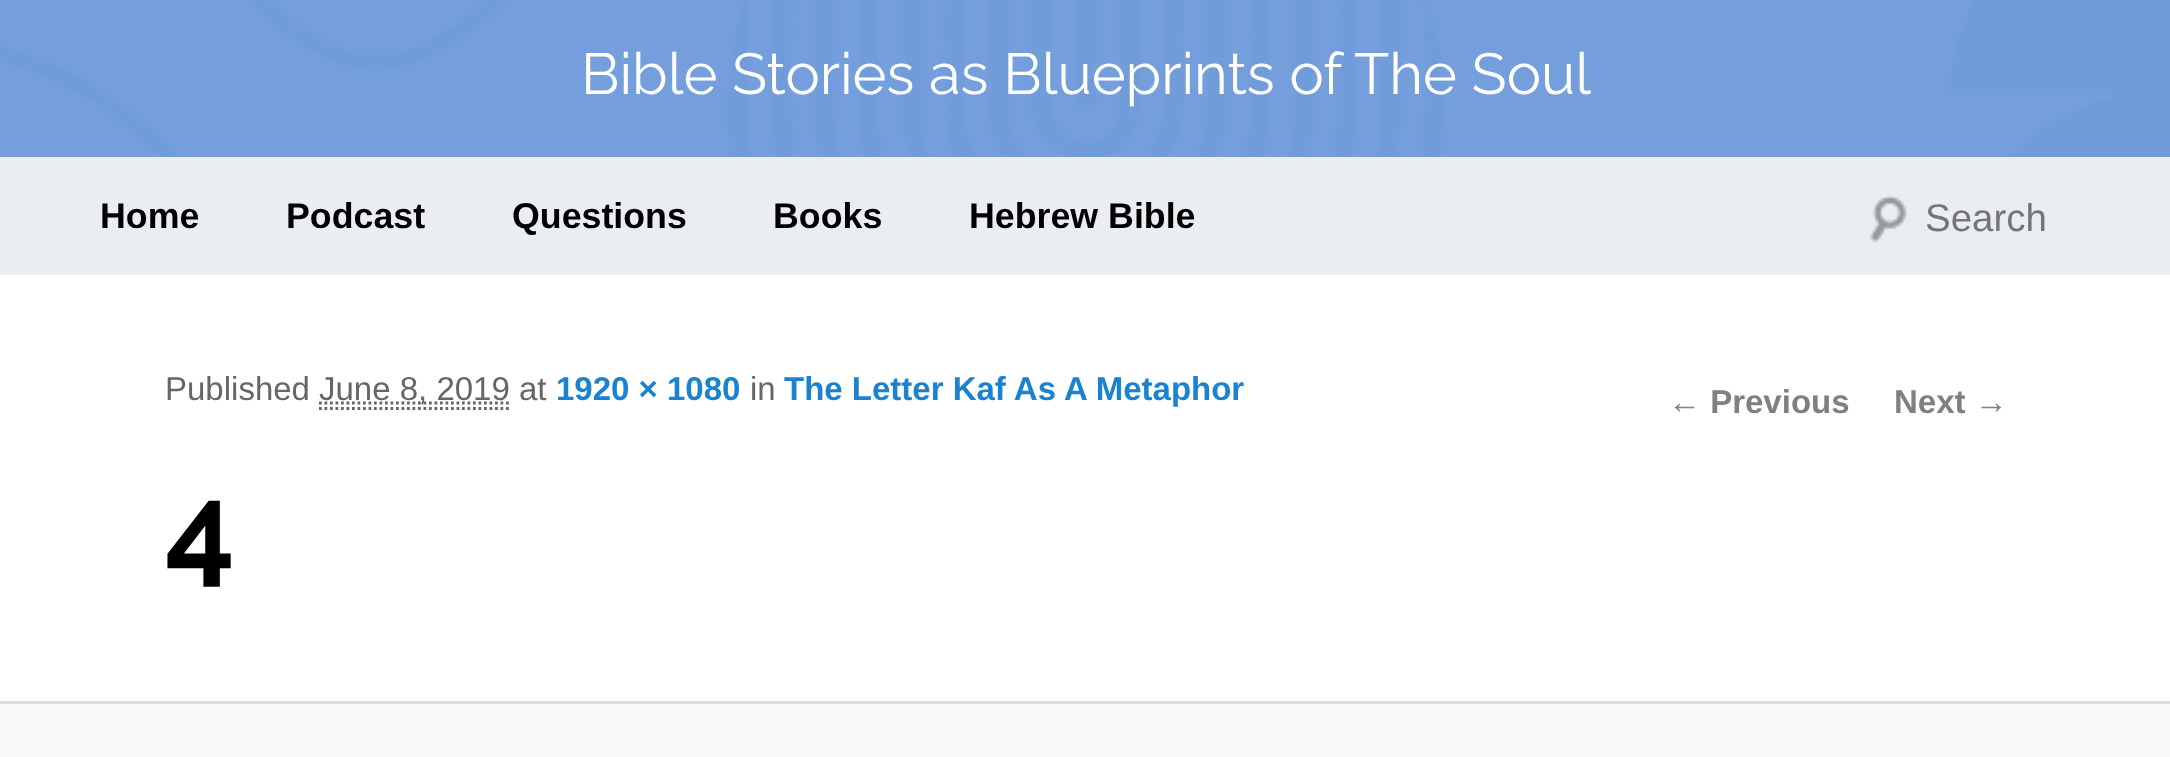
<svg xmlns="http://www.w3.org/2000/svg" width="2170" height="757" viewBox="0 0 2170 757">
  <rect width="100%" height="100%" fill="#fff"/>
  <image x="0" y="0" width="2170" height="157" href="img/1.png"/>
  <path d="M0 0h2170v157H0z" fill="#6895d8e6"/>
  <path d="M0 157h2170v118H0z" fill="#eaedf1"/>
  <image x="1869" y="195" width="38" height="48" href="img/2.png"/>
  <path d="M319 408.5H509" fill="none" stroke="#666" stroke-width="2.8" stroke-dasharray="2.75 2.75"/>
  <path d="M319 403H510" fill="none" stroke="#666" stroke-width="2.8" stroke-dasharray="2.75 2.75"/>
  <path d="M0 704h2170v53H0z" fill="#f9f9f9"/>
  <path d="M0 701h2170v3H0z" fill="#ddd"/>
  <text x="581" y="94" font-family="Raleway" font-size="57.75" fill="#fff">Bible Stories as Blueprints of The Soul</text>
  <g font-family="Liberation Sans" font-size="35.75" font-weight="bold" fill="#000">
    <text x="100" y="228">Home</text>
    <text x="286" y="228">Podcast</text>
    <text x="512" y="228">Questions</text>
    <text x="773" y="228">Books</text>
    <text x="969" y="228">Hebrew Bible</text>
  </g>
  <text x="1925" y="231" font-family="Liberation Sans" font-size="38.5" fill="#757575">Search</text>
  <g font-family="Liberation Sans" font-size="33" fill="#666">
    <text x="165" y="400">Published</text>
    <text x="319" y="400">June 8, 2019 at</text>
  </g>
  <text x="556" y="400" font-family="Liberation Sans" font-size="33" font-weight="bold" fill="#1982d1">1920 × 1080</text>
  <text x="750" y="400" font-family="Liberation Sans" font-size="33" fill="#666">in</text>
  <text x="784" y="400" font-family="Liberation Sans" font-size="33" font-weight="bold" fill="#1982d1">The Letter Kaf As A Metaphor</text>
  <text x="165" y="571" font-family="Raleway" font-size="123" font-weight="bold" fill="#000">4</text>
  <g font-family="Liberation Sans" font-size="33" font-weight="bold" fill="#808080">
    <text x="1668" y="413">← Previous</text>
    <text x="1894" y="413">Next →</text>
  </g>
</svg>
